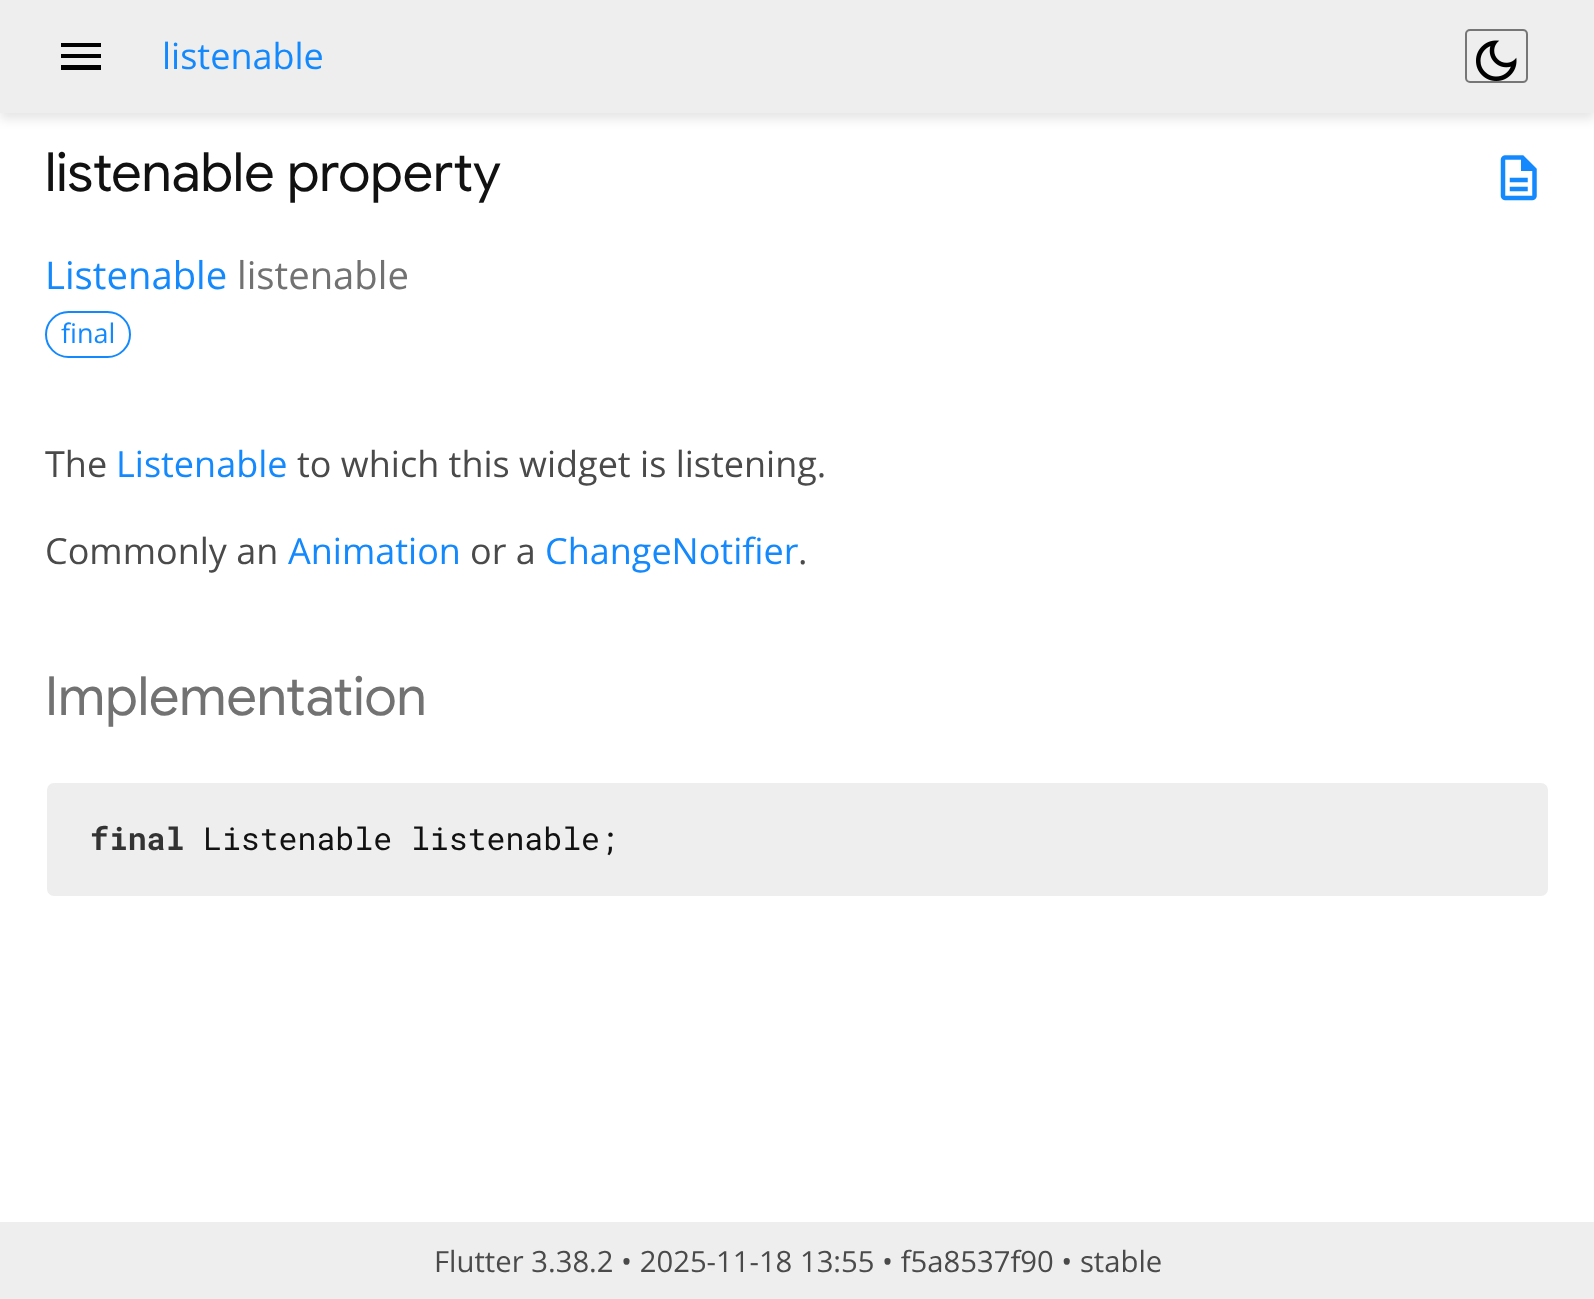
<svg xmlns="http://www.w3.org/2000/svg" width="1594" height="1299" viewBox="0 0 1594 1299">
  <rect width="100%" height="100%" fill="#fff"/>
  <path d="M0 7h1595v112H0z" fill="#0000001a" filter="blur(5.5px)"/>
  <path d="M0 0h1594v113H0z" fill="#eee"/>
  <path d="M61 70V65H101V70ZM61 58V54H101V58ZM61 47V43H101V47Z" fill="#000"/>
  <rect x="1466" y="30" width="61" height="52" rx="4" fill="none" stroke="#767676" stroke-width="2"/>
  <image x="1476" y="40" width="41" height="41" href="img/1.png"/>
  <image x="1500" y="155" width="37" height="46" href="img/2.png"/>
  <rect x="46" y="312" width="84" height="45" rx="22.5" fill="none" stroke="#1389fd" stroke-width="2"/>
  <rect x="46" y="782" width="1503" height="115" rx="8" fill="#eee" stroke="#fff" stroke-width="2"/>
  <path d="M0 1222h1594v77H0z" fill="#eee"/>
  <text x="162" y="69" font-family="Open Sans" font-size="36" fill="#1389fd">listenable</text>
  <text x="45" y="191" font-family="Google Sans" font-size="54" fill="#111">listenable property</text>
  <text x="45" y="289" font-family="Open Sans" font-size="38.25" fill="#1389fd">Listenable</text>
  <text x="237" y="289" font-family="Open Sans" font-size="38.25" fill="#727272">listenable</text>
  <text x="61" y="343" font-family="Open Sans" font-size="27" fill="#1389fd">final</text>
  <text x="45" y="477" font-family="Open Sans" font-size="36" fill="#4a4a4a">The</text>
  <text x="116" y="477" font-family="Open Sans" font-size="36" fill="#1389fd">Listenable</text>
  <g font-family="Open Sans" font-size="36" fill="#4a4a4a">
    <text x="297" y="477">to which this widget is listening.</text>
    <text x="45" y="564">Commonly an</text>
  </g>
  <text x="288" y="564" font-family="Open Sans" font-size="36" fill="#1389fd">Animation</text>
  <text x="470" y="564" font-family="Open Sans" font-size="36" fill="#4a4a4a">or a</text>
  <text x="545" y="564" font-family="Open Sans" font-size="36" fill="#1389fd">ChangeNotifier</text>
  <text x="798" y="564" font-family="Open Sans" font-size="36" fill="#4a4a4a">.</text>
  <text x="45" y="715" font-family="Google Sans" font-size="54" fill="#727272">Implementation</text>
  <text x="90" y="850" font-family="Roboto Mono" font-size="31.5" font-weight="bold" fill="#333">final</text>
  <text x="203" y="850" font-family="Roboto Mono" font-size="31.5" fill="#111">Listenable listenable;</text>
  <text x="434" y="1272" font-family="Open Sans" font-size="29.25" fill="#4a4a4a">Flutter 3.38.2 • 2025-11-18 13:55 • f5a8537f90 • stable</text>
</svg>
